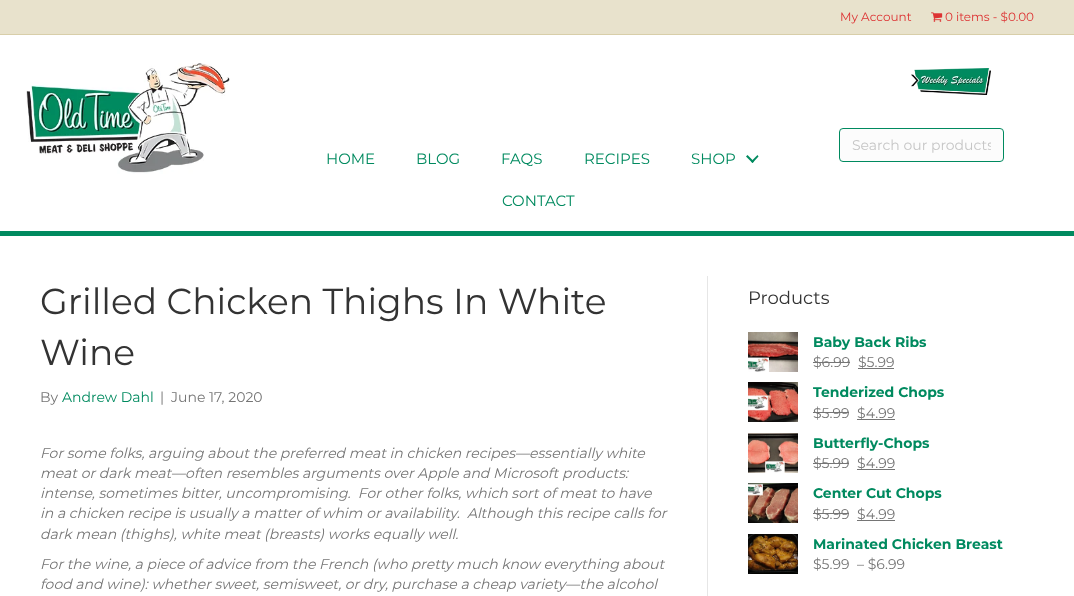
<svg xmlns="http://www.w3.org/2000/svg" width="1074" height="596" viewBox="0 0 1074 596">
  <defs>
    <clipPath id="clip1"><path d="M852 136h139v18H852z"/></clipPath>
  </defs>
  <rect width="100%" height="100%" fill="#e8e2cc"/>
  <path d="M0 34h1074v1H0z" fill="#d8cea9"/>
  <image x="931" y="12" width="12" height="10" href="img/1.png"/>
  <path d="M0 35h1074v561H0z" fill="#fff"/>
  <path d="M0 231h1074v5H0z" fill="#008a5f"/>
  <image x="26" y="63" width="204" height="111" href="img/2.png"/>
  <image x="911" y="68" width="80" height="27" href="img/3.png"/>
  <rect x="839.5" y="128.5" width="164" height="33" rx="3.5" fill="#fcfcfc" stroke="#008a5f"/>
  <path d="M757.5 155L758.5 156.5L752.5 163L751 161.5Z" fill="#008a5f"/>
  <path d="M747.5 155L754 161.5L752.5 163L746 156.5Z" fill="#008a5f"/>
  <path d="M707 276h1v320H707z" fill="#e6e6e6"/>
  <image x="748" y="332" width="50" height="40" href="img/4.png"/>
  <path d="M813 362h37v1H813z" fill="#757575"/>
  <path d="M858 368h36v1H858z" fill="#757575"/>
  <image x="748" y="382" width="50" height="40" href="img/5.png"/>
  <path d="M813 412h36v1H813z" fill="#757575"/>
  <path d="M857 419h38v1H857z" fill="#757575"/>
  <image x="748" y="433" width="50" height="40" href="img/6.png"/>
  <path d="M813 463h36v1H813z" fill="#757575"/>
  <path d="M857 469h38v1H857z" fill="#757575"/>
  <image x="748" y="483" width="50" height="40" href="img/7.png"/>
  <path d="M813 513h36v1H813z" fill="#757575"/>
  <path d="M857 520h38v1H857z" fill="#757575"/>
  <image x="748" y="534" width="50" height="40" href="img/8.png"/>
  <g font-family="Montserrat" font-size="12" fill="#d33">
    <text x="840" y="21">My Account</text>
    <text x="945" y="21">0 items - $0.00</text>
  </g>
  <g clip-path="url(#clip1)">
    <text x="852" y="150" font-family="Montserrat" font-size="14" fill="#c6c6c6">Search our products</text>
  </g>
  <g font-family="Montserrat" font-size="15" fill="#008a5f">
    <text x="326" y="164">HOME</text>
    <text x="416" y="164">BLOG</text>
    <text x="501" y="164">FAQS</text>
    <text x="584" y="164">RECIPES</text>
    <text x="691" y="164">SHOP</text>
    <text x="502" y="206">CONTACT</text>
  </g>
  <g font-family="Montserrat" font-size="36" fill="#333">
    <text x="40" y="314">Grilled Chicken Thighs In White</text>
    <text x="40" y="365">Wine</text>
  </g>
  <text x="40" y="402" font-family="Montserrat" font-size="14" fill="#757575">By</text>
  <text x="62" y="402" font-family="Montserrat" font-size="14" fill="#008a5f">Andrew Dahl</text>
  <g font-family="Montserrat" font-size="14" fill="#757575">
    <text x="160" y="402">|</text>
    <text x="171" y="402">June 17, 2020</text>
  </g>
  <g font-family="Montserrat" font-size="14" font-style="italic" fill="#757575">
    <text x="40" y="458">For some folks, arguing about the preferred meat in chicken recipes—essentially white</text>
    <text x="40" y="478">meat or dark meat—often resembles arguments over Apple and Microsoft products:</text>
    <text x="40" y="498" xml:space="preserve">intense, sometimes bitter, uncompromising.  For other folks, which sort of meat to have</text>
    <text x="40" y="518" xml:space="preserve">in a chicken recipe is usually a matter of whim or availability.  Although this recipe calls for</text>
    <text x="40" y="539">dark mean (thighs), white meat (breasts) works equally well.</text>
    <text x="40" y="569">For the wine, a piece of advice from the French (who pretty much know everything about</text>
    <text x="40" y="589">food and wine): whether sweet, semisweet, or dry, purchase a cheap variety—the alcohol</text>
  </g>
  <text x="748" y="304" font-family="Montserrat" font-size="18" fill="#333">Products</text>
  <text x="813" y="347" font-family="Montserrat" font-size="14" font-weight="bold" fill="#008a5f">Baby Back Ribs</text>
  <g font-family="Montserrat" font-size="14" fill="#757575">
    <text x="813" y="367">$6.99</text>
    <text x="858" y="367">$5.99</text>
  </g>
  <text x="813" y="397" font-family="Montserrat" font-size="14" font-weight="bold" fill="#008a5f">Tenderized Chops</text>
  <g font-family="Montserrat" font-size="14" fill="#757575">
    <text x="813" y="418">$5.99</text>
    <text x="857" y="418">$4.99</text>
  </g>
  <text x="813" y="448" font-family="Montserrat" font-size="14" font-weight="bold" fill="#008a5f">Butterfly-Chops</text>
  <g font-family="Montserrat" font-size="14" fill="#757575">
    <text x="813" y="468">$5.99</text>
    <text x="857" y="468">$4.99</text>
  </g>
  <text x="813" y="498" font-family="Montserrat" font-size="14" font-weight="bold" fill="#008a5f">Center Cut Chops</text>
  <g font-family="Montserrat" font-size="14" fill="#757575">
    <text x="813" y="519">$5.99</text>
    <text x="857" y="519">$4.99</text>
  </g>
  <text x="813" y="549" font-family="Montserrat" font-size="14" font-weight="bold" fill="#008a5f">Marinated Chicken Breast</text>
  <g font-family="Montserrat" font-size="14" fill="#757575">
    <text x="813" y="569">$5.99</text>
    <text x="857" y="569">– $6.99</text>
  </g>
</svg>
